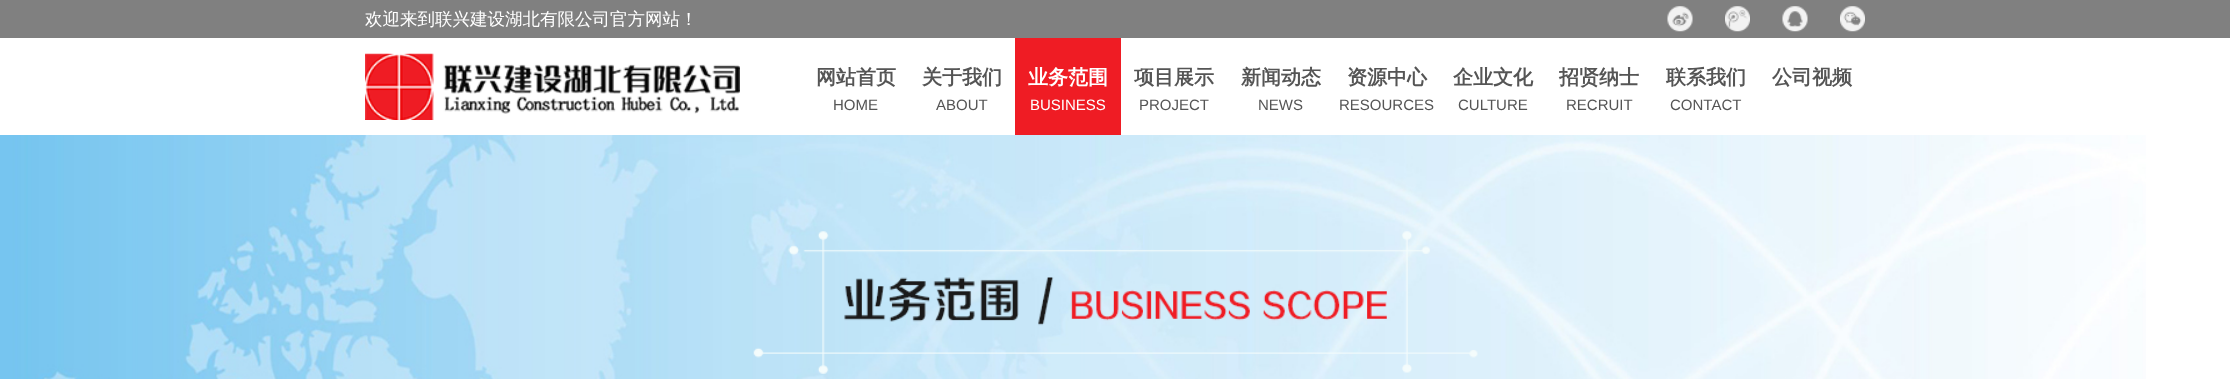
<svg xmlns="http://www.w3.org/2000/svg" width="2230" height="379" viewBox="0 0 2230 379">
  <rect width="100%" height="100%" fill="#fff"/>
  <path d="M0 0h2230v38H0z" fill="#808080"/>
  <image x="1667" y="6" width="26" height="26" href="img/1.png"/>
  <image x="1725" y="6" width="25" height="26" href="img/2.png"/>
  <image x="1782" y="6" width="26" height="26" href="img/3.png"/>
  <image x="1840" y="6" width="25" height="26" href="img/4.png"/>
  <image x="365" y="53" width="375" height="67" href="img/5.png"/>
  <path d="M1015 38h106v97H1015z" fill="#ef1c24"/>
  <image x="0" y="135" width="2146" height="244" href="img/6.png"/>
  <text x="365" y="25" font-family="WenQuanYi Zen Hei" font-size="17.5" font-weight="500" fill="#fff">欢迎来到联兴建设湖北有限公司官方网站！</text>
  <text x="816" y="84" font-family="WenQuanYi Zen Hei" font-size="20" font-weight="bold" fill="#555">网站首页</text>
  <text x="833" y="110" font-family="Liberation Sans" font-size="15" fill="#555">HOME</text>
  <text x="922" y="84" font-family="WenQuanYi Zen Hei" font-size="20" font-weight="bold" fill="#555">关于我们</text>
  <text x="936" y="110" font-family="Liberation Sans" font-size="15" fill="#555">ABOUT</text>
  <text x="1028" y="84" font-family="WenQuanYi Zen Hei" font-size="20" font-weight="bold" fill="#fff">业务范围</text>
  <text x="1030" y="110" font-family="Liberation Sans" font-size="15" fill="#fff">BUSINESS</text>
  <text x="1134" y="84" font-family="WenQuanYi Zen Hei" font-size="20" font-weight="bold" fill="#555">项目展示</text>
  <text x="1139" y="110" font-family="Liberation Sans" font-size="15" fill="#555">PROJECT</text>
  <text x="1241" y="84" font-family="WenQuanYi Zen Hei" font-size="20" font-weight="bold" fill="#555">新闻动态</text>
  <text x="1258" y="110" font-family="Liberation Sans" font-size="15" fill="#555">NEWS</text>
  <text x="1347" y="84" font-family="WenQuanYi Zen Hei" font-size="20" font-weight="bold" fill="#555">资源中心</text>
  <text x="1339" y="110" font-family="Liberation Sans" font-size="15" fill="#555">RESOURCES</text>
  <text x="1453" y="84" font-family="WenQuanYi Zen Hei" font-size="20" font-weight="bold" fill="#555">企业文化</text>
  <text x="1458" y="110" font-family="Liberation Sans" font-size="15" fill="#555">CULTURE</text>
  <text x="1559" y="84" font-family="WenQuanYi Zen Hei" font-size="20" font-weight="bold" fill="#555">招贤纳士</text>
  <text x="1566" y="110" font-family="Liberation Sans" font-size="15" fill="#555">RECRUIT</text>
  <text x="1666" y="84" font-family="WenQuanYi Zen Hei" font-size="20" font-weight="bold" fill="#555">联系我们</text>
  <text x="1670" y="110" font-family="Liberation Sans" font-size="15" fill="#555">CONTACT</text>
  <text x="1772" y="84" font-family="WenQuanYi Zen Hei" font-size="20" font-weight="bold" fill="#555">公司视频</text>
</svg>
